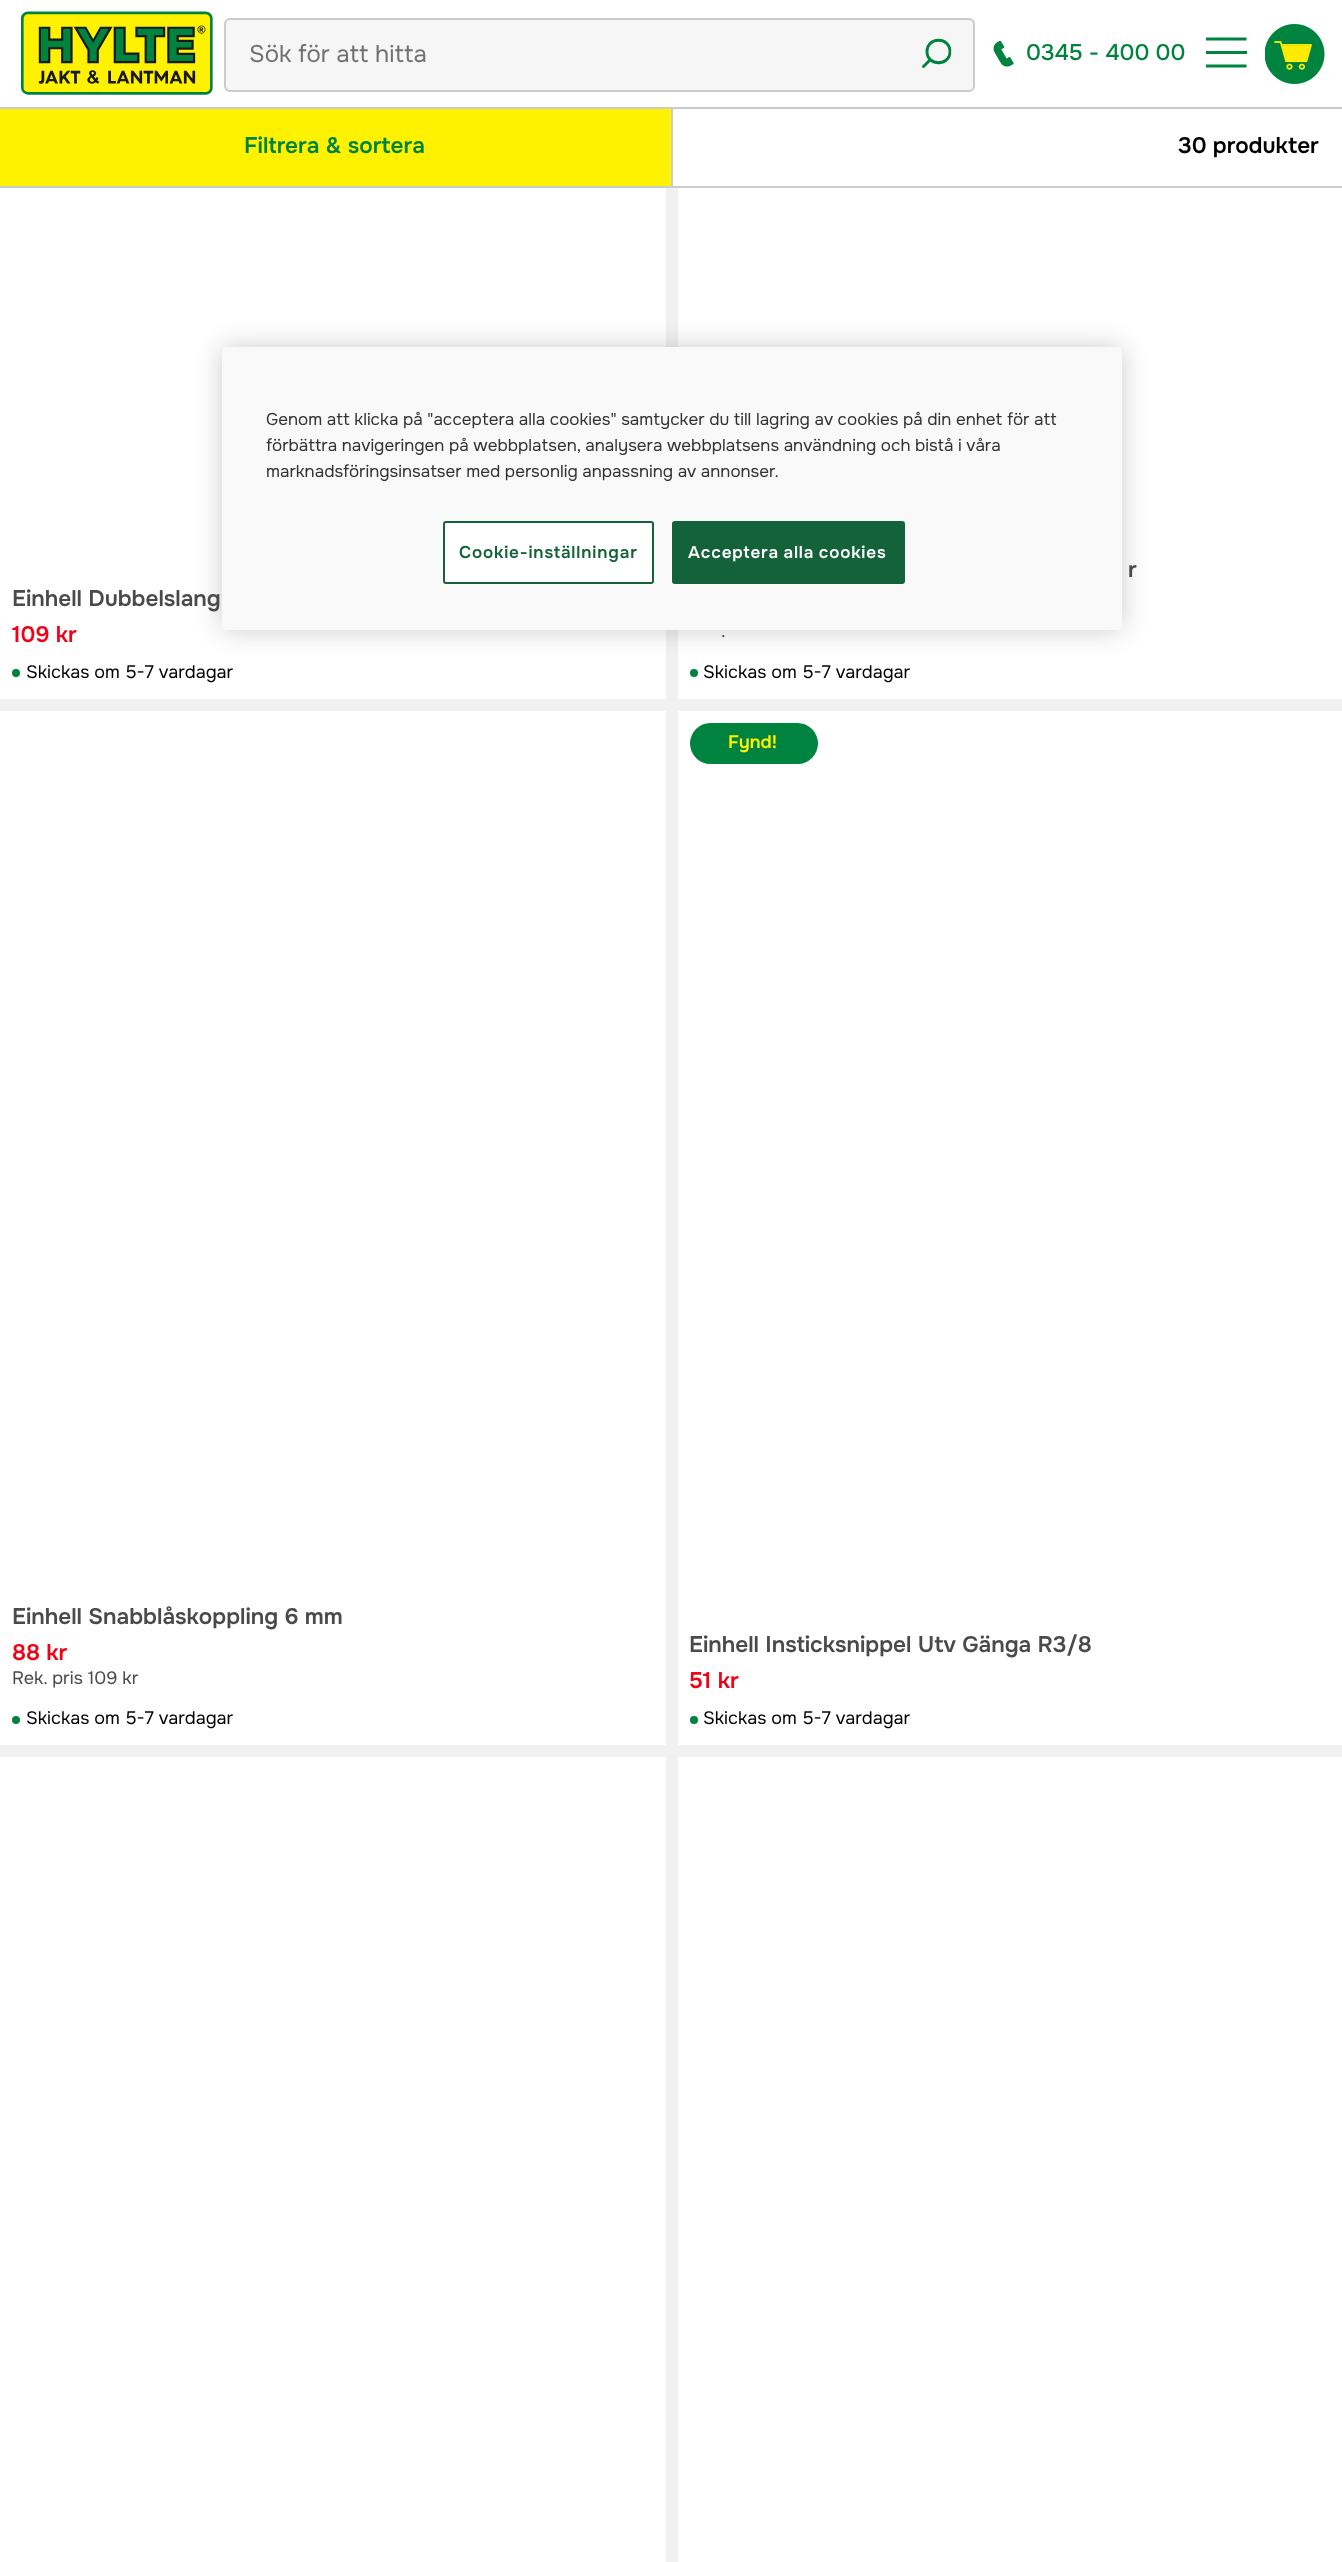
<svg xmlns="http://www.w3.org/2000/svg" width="1342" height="2562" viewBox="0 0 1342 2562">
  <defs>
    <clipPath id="clip1"><path d="M951.5 38V68H921.5V38Z"/></clipPath>
  </defs>
  <rect width="100%" height="100%" fill="#f1f1f1"/>
  <path d="M0 0h1342v107H0z" fill="#fff"/>
  <path d="M671 107h2v79H671z" fill="#cbcbcb"/>
  <path d="M0 107h1342v2H0z" fill="#cbcbcb"/>
  <image x="21" y="11" width="192" height="84" href="img/1.png"/>
  <rect x="225" y="19" width="749" height="72" rx="5" fill="#f6f6f6" stroke="#cbcbcb" stroke-width="2"/>
  <g clip-path="url(#clip1)">
    <path d="M950 51.5C950 66.5 927 66.5 927 51.5C927 36.5 950 36.5 950 51.5Z" fill="none" stroke="#00833e" stroke-width="2.9"/>
  </g>
  <path d="M930 60L923.5 66.5" fill="none" stroke="#00833e" stroke-width="2.9" stroke-linecap="round"/>
  <image x="993" y="41" width="21" height="26" href="img/2.png"/>
  <path d="M1206 39H1246.5" fill="none" stroke="#00833e" stroke-width="3"/>
  <path d="M1206 51h41v3H1206z" fill="#00833e"/>
  <path d="M1206 66H1246.5" fill="none" stroke="#00833e" stroke-width="3"/>
  <image x="1265" y="24" width="60" height="60" href="img/3.png"/>
  <path d="M673 109h669v77H673z" fill="#fff"/>
  <path d="M0 186h1342v2H0z" fill="#cbcbcb"/>
  <path d="M0 109h671v77H0z" fill="#fff200"/>
  <path d="M0 188h666v511H0z" fill="#fff"/>
  <circle cx="16" cy="673" r="4" fill="#00833e"/>
  <path d="M678 188h664v511H678z" fill="#fff"/>
  <circle cx="694" cy="673" r="4" fill="#00833e"/>
  <path d="M0 711h666v1034H0z" fill="#fff"/>
  <circle cx="16" cy="1720" r="4" fill="#00833e"/>
  <path d="M678 711h664v1034H678z" fill="#fff"/>
  <rect x="690" y="723" width="128" height="41" rx="20.5" fill="#00833e"/>
  <circle cx="694" cy="1720" r="4" fill="#00833e"/>
  <path d="M0 1757h666v805H0z" fill="#fff"/>
  <path d="M678 1757h664v805H678z" fill="#fff"/>
  <rect x="222" y="347" width="900" height="283" rx="4" fill="#00000033" filter="blur(13.5px)"/>
  <rect x="222" y="347" width="900" height="283" rx="4" fill="#f9f9f9"/>
  <rect x="444" y="522" width="209" height="61" rx="2" fill="#fff" stroke="#13623a" stroke-width="2"/>
  <rect x="673" y="522" width="231" height="61" rx="2" fill="#13623a" stroke="#13623a" stroke-width="2"/>
  <text x="249" y="62" font-family="Onest" font-size="24" fill="#717171">Sök för att hitta</text>
  <text x="1026" y="60" font-family="Onest" font-size="22.5" font-weight="500" fill="#00833e">0345 - 400 00</text>
  <text x="244" y="153" font-family="Onest" font-size="22.5" font-weight="600" fill="#00833e">Filtrera &amp; sortera</text>
  <text x="1178" y="153" font-family="Onest" font-size="22.5" font-weight="600" fill="#000">30 produkter</text>
  <text x="12" y="606" font-family="Onest" font-size="22.5" font-weight="600" fill="#4a4a4a">Einhell Dubbelslang</text>
  <text x="12" y="642" font-family="Onest" font-size="22.5" font-weight="600" fill="#f10317">109 kr</text>
  <text x="26" y="678" font-family="Onest" font-size="18" fill="#000">Skickas om 5-7 vardagar</text>
  <text x="1128" y="577" font-family="Onest" font-size="22.5" font-weight="600" fill="#4a4a4a">r</text>
  <text x="721" y="637" font-family="Onest" font-size="18" fill="#4a4a4a">.</text>
  <text x="703" y="678" font-family="Onest" font-size="18" fill="#000">Skickas om 5-7 vardagar</text>
  <text x="12" y="1624" font-family="Onest" font-size="22.5" font-weight="600" fill="#4a4a4a">Einhell Snabblåskoppling 6 mm</text>
  <text x="12" y="1660" font-family="Onest" font-size="22.5" font-weight="600" fill="#f10317">88 kr</text>
  <text x="12" y="1684" font-family="Onest" font-size="18" fill="#4a4a4a">Rek. pris 109 kr</text>
  <text x="26" y="1724" font-family="Onest" font-size="18" fill="#000">Skickas om 5-7 vardagar</text>
  <text x="728" y="748" font-family="Onest" font-size="18" font-weight="600" fill="#fff200">Fynd!</text>
  <text x="689" y="1652" font-family="Onest" font-size="22.5" font-weight="600" fill="#4a4a4a">Einhell Insticksnippel Utv Gänga R3/8</text>
  <text x="689" y="1688" font-family="Onest" font-size="22.5" font-weight="600" fill="#f10317">51 kr</text>
  <text x="703" y="1724" font-family="Onest" font-size="18" fill="#000">Skickas om 5-7 vardagar</text>
  <g font-family="Onest" font-size="17.05" fill="#333">
    <text x="266" y="425">Genom att klicka på "acceptera alla cookies" samtycker du till lagring av cookies på din enhet för att</text>
    <text x="266" y="451">förbättra navigeringen på webbplatsen, analysera webbplatsens användning och bistå i våra</text>
    <text x="266" y="477">marknadsföringsinsatser med personlig anpassning av annonser.</text>
  </g>
  <text x="459" y="558" font-family="Onest" font-size="17.05" font-weight="600" letter-spacing="0.85" fill="#13623a">Cookie-inställningar</text>
  <text x="688" y="558" word-spacing="-1" font-family="Onest" font-size="17.05" font-weight="600" letter-spacing="0.85" fill="#fff">Acceptera alla cookies</text>
</svg>
